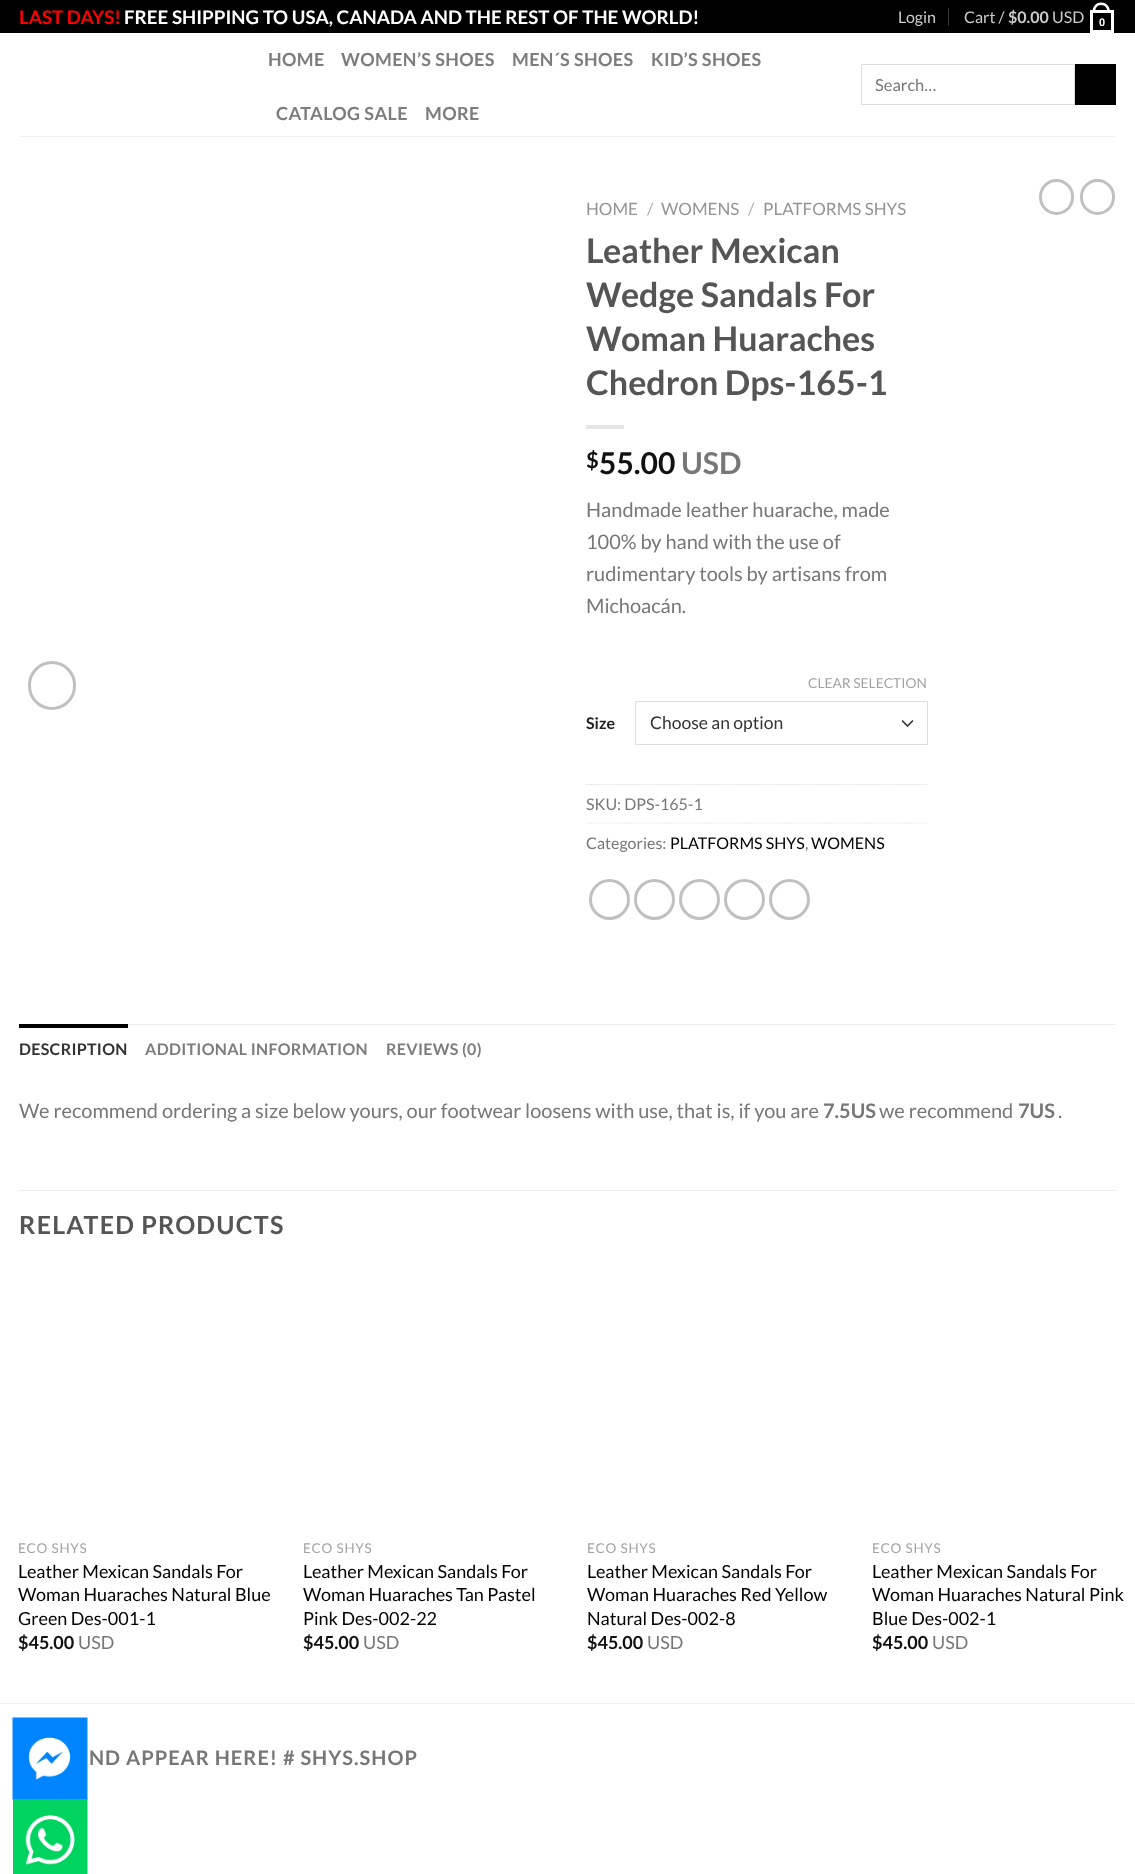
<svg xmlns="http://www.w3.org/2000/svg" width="1135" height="1874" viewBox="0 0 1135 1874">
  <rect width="100%" height="100%" fill="#fff"/>
  <path d="M0 0h1135v33H0z" fill="#000"/>
  <path d="M948 8h1v18H948z" fill="#333"/>
  <path d="M1091.5 11.5h21v20H1091.5z" fill="none" stroke="#fff" stroke-width="3"/>
  <path d="M1101 2.5C1107 2.5 1110 7 1110 12.5H1092.5C1092.5 7 1095.5 2.5 1101 2.5ZM1101 5C1105.5 5 1107.5 8.5 1107.5 12.5H1095C1095 8.5 1097 5 1101 5Z" fill="#fff" fill-rule="evenodd"/>
  <path d="M861.5 64.5h213v40H861.5z" fill="none" stroke="#ddd"/>
  <path d="M1075 64h41v41H1075z" fill="#000"/>
  <path d="M19 136h1097v1H19z" fill="#f1f1f1"/>
  <rect x="1040.5" y="180.5" width="32" height="33" rx="16" fill="none" stroke="#c0c0c0" stroke-width="3"/>
  <rect x="1081.5" y="180.5" width="32" height="33" rx="16" fill="none" stroke="#c0c0c0" stroke-width="3"/>
  <rect x="29.5" y="662.5" width="45" height="46" rx="22.5" fill="none" stroke="#c0c0c0" stroke-width="3"/>
  <path d="M586 425h38v4H586z" fill="#e6e6e6"/>
  <path d="M902.5 721L907.5 726L912.5 721" fill="none" stroke="#333" stroke-width="1.7" stroke-linecap="round" stroke-linejoin="round"/>
  <path d="M635.5 701.5h292v43H635.5z" fill="none" stroke="#ddd"/>
  <path d="M586 784.5H927.5" fill="none" stroke="#ddd" stroke-width="1.2" stroke-dasharray="1.25 1.25"/>
  <path d="M586 823H927.5" fill="none" stroke="#ddd" stroke-width="1.2" stroke-dasharray="1.25 1.25"/>
  <circle cx="609.5" cy="899.5" r="19" fill="none" stroke="#c0c0c0" stroke-width="3"/>
  <circle cx="654.5" cy="899.5" r="19" fill="none" stroke="#c0c0c0" stroke-width="3"/>
  <circle cx="699.5" cy="899.5" r="19" fill="none" stroke="#c0c0c0" stroke-width="3"/>
  <circle cx="744.5" cy="899.5" r="19" fill="none" stroke="#c0c0c0" stroke-width="3"/>
  <circle cx="789.5" cy="899.5" r="19" fill="none" stroke="#c0c0c0" stroke-width="3"/>
  <path d="M128 1024h988v1H128z" fill="#ececec"/>
  <path d="M19 1024h109v4H19z" fill="#000"/>
  <path d="M19 1190h1097v1H19z" fill="#ececec"/>
  <path d="M0 1703h1135v1H0z" fill="#f2f2f2"/>
  <image x="12" y="1717" width="76" height="83" href="img/1.png"/>
  <image x="13" y="1799" width="75" height="75" href="img/2.png"/>
  <text x="19" y="24" font-family="Lato" font-size="18.75" font-weight="bold" fill="#f00">LAST DAYS!</text>
  <text x="124" y="24" font-family="Lato" font-size="18.75" font-weight="bold" fill="#fff">FREE SHIPPING TO USA, CANADA AND THE REST OF THE WORLD!</text>
  <g font-family="Lato" font-size="16" fill="#ccc">
    <text x="898" y="23">Login</text>
    <text x="964" y="23">Cart /</text>
  </g>
  <text x="1008" y="23" font-family="Lato" font-size="16" font-weight="bold" fill="#ccc">$0.00</text>
  <text x="1052" y="23" font-family="Lato" font-size="16" fill="#ccc">USD</text>
  <text x="1099" y="26" font-family="Liberation Sans" font-size="11" font-weight="bold" fill="#fff">0</text>
  <g font-family="Lato" font-size="18" font-weight="bold" letter-spacing="0.4" fill="#7d7d7d">
    <text x="268" y="66">HOME</text>
    <text x="341" y="66">WOMEN’S SHOES</text>
    <text x="512" y="66">MEN´S SHOES</text>
    <text x="651" y="66">KID’S SHOES</text>
    <text x="276" y="120">CATALOG SALE</text>
    <text x="425" y="120">MORE</text>
  </g>
  <text x="875" y="91" font-family="Lato" font-size="16.5" fill="#777">Search…</text>
  <text x="586" y="215" font-family="Lato" font-size="17" fill="#949494">HOME</text>
  <text x="647" y="215" font-family="Lato" font-size="17" fill="#b2b2b2">/</text>
  <text x="661" y="215" font-family="Lato" font-size="17" fill="#949494">WOMENS</text>
  <text x="748" y="215" font-family="Lato" font-size="17" fill="#b2b2b2">/</text>
  <text x="763" y="215" font-family="Lato" font-size="17" fill="#949494">PLATFORMS SHYS</text>
  <g font-family="Lato" font-size="34" font-weight="bold" fill="#555">
    <text x="586" y="263">Leather Mexican</text>
    <text x="586" y="307">Wedge Sandals For</text>
    <text x="586" y="351">Woman Huaraches</text>
    <text x="586" y="395">Chedron Dps-165-1</text>
  </g>
  <text x="586" y="468" font-family="Lato" font-size="22" font-weight="bold" fill="#111">$</text>
  <text x="599" y="474" font-family="Lato" font-size="30" font-weight="bold" fill="#111">55.00</text>
  <text x="681" y="474" font-family="Lato" font-size="30" font-weight="bold" fill="#777">USD</text>
  <g font-family="Lato" font-size="20" fill="#777">
    <text x="586" y="517">Handmade leather huarache, made</text>
    <text x="586" y="549">100% by hand with the use of</text>
    <text x="586" y="581">rudimentary tools by artisans from</text>
    <text x="586" y="613">Michoacán.</text>
  </g>
  <text x="586" y="729" font-family="Lato" font-size="16" font-weight="bold" fill="#222">Size</text>
  <text x="808" y="688" font-family="Lato" font-size="13.75" fill="#a3a3a3">CLEAR SELECTION</text>
  <text x="650" y="729" font-family="Lato" font-size="17.5" fill="#333">Choose an option</text>
  <g font-family="Lato" font-size="16" fill="#777">
    <text x="586" y="810">SKU: DPS-165-1</text>
    <text x="586" y="849">Categories:</text>
  </g>
  <text x="670" y="849" font-family="Lato" font-size="16" fill="#000">PLATFORMS SHYS</text>
  <text x="805" y="849" font-family="Lato" font-size="16" fill="#777">,</text>
  <text x="811" y="849" font-family="Lato" font-size="16" fill="#000">WOMENS</text>
  <text x="19" y="1055" font-family="Lato" font-size="16" font-weight="bold" letter-spacing="0.3" fill="#333">DESCRIPTION</text>
  <g font-family="Lato" font-size="16" font-weight="bold" letter-spacing="0.3" fill="#7d7d7d">
    <text x="145" y="1055">ADDITIONAL INFORMATION</text>
    <text x="386" y="1055">REVIEWS (0)</text>
  </g>
  <text x="19" y="1118" font-family="Lato" font-size="20" fill="#777">We recommend ordering a size below yours, our footwear loosens with use, that is, if you are</text>
  <text x="823" y="1118" font-family="Lato" font-size="20" font-weight="bold" fill="#777">7.5US</text>
  <text x="879" y="1118" font-family="Lato" font-size="20" fill="#777">we recommend</text>
  <text x="1018" y="1118" font-family="Lato" font-size="20" font-weight="bold" fill="#777">7US</text>
  <text x="1058" y="1118" font-family="Lato" font-size="20" fill="#777">.</text>
  <text x="19" y="1234" font-family="Lato" font-size="25" font-weight="bold" letter-spacing="1.25" fill="#555">RELATED PRODUCTS</text>
  <text x="18" y="1553" font-family="Lato" font-size="13.5" letter-spacing="0.75" fill="#a3a3a3">ECO SHYS</text>
  <g font-family="Lato" font-size="18" fill="#000">
    <text x="18" y="1578">Leather Mexican Sandals For</text>
    <text x="18" y="1601">Woman Huaraches Natural Blue</text>
    <text x="18" y="1625">Green Des-001-1</text>
  </g>
  <text x="18" y="1649" font-family="Lato" font-size="18" font-weight="bold" fill="#111">$45.00</text>
  <text x="78" y="1649" font-family="Lato" font-size="18" fill="#777">USD</text>
  <text x="303" y="1553" font-family="Lato" font-size="13.5" letter-spacing="0.75" fill="#a3a3a3">ECO SHYS</text>
  <g font-family="Lato" font-size="18" fill="#000">
    <text x="303" y="1578">Leather Mexican Sandals For</text>
    <text x="303" y="1601">Woman Huaraches Tan Pastel</text>
    <text x="303" y="1625">Pink Des-002-22</text>
  </g>
  <text x="303" y="1649" font-family="Lato" font-size="18" font-weight="bold" fill="#111">$45.00</text>
  <text x="363" y="1649" font-family="Lato" font-size="18" fill="#777">USD</text>
  <text x="587" y="1553" font-family="Lato" font-size="13.5" letter-spacing="0.75" fill="#a3a3a3">ECO SHYS</text>
  <g font-family="Lato" font-size="18" fill="#000">
    <text x="587" y="1578">Leather Mexican Sandals For</text>
    <text x="587" y="1601">Woman Huaraches Red Yellow</text>
    <text x="587" y="1625">Natural Des-002-8</text>
  </g>
  <text x="587" y="1649" font-family="Lato" font-size="18" font-weight="bold" fill="#111">$45.00</text>
  <text x="647" y="1649" font-family="Lato" font-size="18" fill="#777">USD</text>
  <text x="872" y="1553" font-family="Lato" font-size="13.5" letter-spacing="0.75" fill="#a3a3a3">ECO SHYS</text>
  <g font-family="Lato" font-size="18" fill="#000">
    <text x="872" y="1578">Leather Mexican Sandals For</text>
    <text x="872" y="1601">Woman Huaraches Natural Pink</text>
    <text x="872" y="1625">Blue Des-002-1</text>
  </g>
  <text x="872" y="1649" font-family="Lato" font-size="18" font-weight="bold" fill="#111">$45.00</text>
  <text x="932" y="1649" font-family="Lato" font-size="18" fill="#777">USD</text>
  <text x="89" y="1765" font-family="Lato" font-size="20" font-weight="bold" letter-spacing="1" fill="#777">ND APPEAR HERE! # SHYS.SHOP</text>
</svg>
